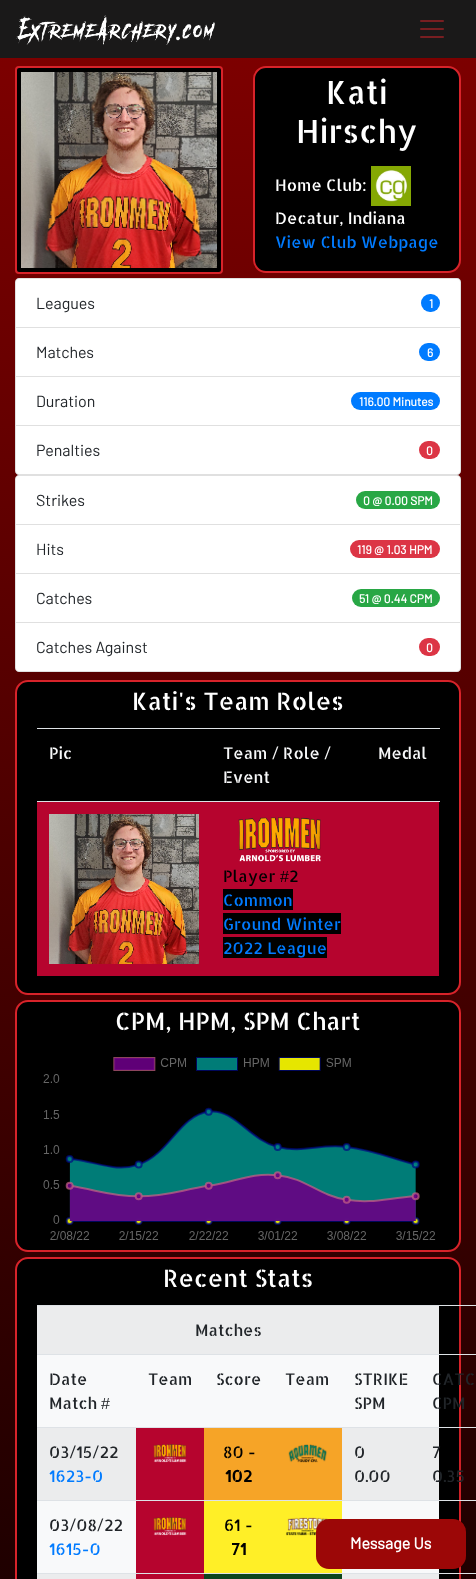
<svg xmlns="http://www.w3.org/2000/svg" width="476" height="1579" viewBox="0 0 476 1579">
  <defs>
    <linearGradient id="g1" gradientUnits="userSpaceOnUse" x1="238" y1="0" x2="238" y2="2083"><stop offset="0" stop-color="#800000"/><stop offset="1" stop-color="#000"/></linearGradient>
  </defs>
  <rect width="100%" height="100%" fill="#fff"/>
  <path d="M0 58h476v1521H0z" fill="url(#g1)"/>
  <path d="M0 0h476v58H0z" fill="#1a1919"/>
  <image x="16" y="15" width="199" height="30" href="img/1.png"/>
  <image x="420" y="20" width="24" height="18" href="img/2.png"/>
  <rect x="16" y="67" width="206" height="206" rx="3" fill="#000" stroke="#d8232a" stroke-width="2"/>
  <image x="21" y="72" width="196" height="196" href="img/3.png"/>
  <rect x="254" y="67" width="206" height="205" rx="12" fill="#000" stroke="#d8232a" stroke-width="2"/>
  <image x="371" y="166" width="40" height="40" href="img/4.png"/>
  <path d="M19 278H457C459 278 461 280 461 282V328H15V282C15 280 17 278 19 278Z" fill="#fff"/>
  <path d="M19 278.5H457C459 278.5 460.5 280 460.5 282V327.5H15.5V282C15.5 280 17 278.5 19 278.5Z" fill="none" stroke="#0000001f"/>
  <rect x="421" y="294" width="19" height="18" rx="9" fill="#007bff"/>
  <path d="M15 328h446v98H15z" fill="#fff"/>
  <path d="M461 328V377L460 376V328Z" fill="#dfdfdf"/>
  <path d="M461 377H15L16 376H460Z" fill="#0000001f"/>
  <path d="M15 377V328H16V376Z" fill="#0000001f"/>
  <rect x="419" y="343" width="21" height="18" rx="9" fill="#007bff"/>
  <path d="M461 377V426L460 425V377Z" fill="#dfdfdf"/>
  <path d="M461 426H15L16 425H460Z" fill="#0000001f"/>
  <path d="M15 426V377H16V425Z" fill="#0000001f"/>
  <rect x="351" y="392" width="89" height="18" rx="9" fill="#007bff"/>
  <path d="M15 426H461V471C461 473 459 475 457 475H19C17 475 15 473 15 471Z" fill="#fff"/>
  <path d="M15 426H461V471C461 473 459 475 457 475H19C17 475 15 473 15 471ZM16 426H460V471C460 473 459 474 457 474H19C17 474 16 473 16 471Z" fill="#0000001f" fill-rule="evenodd"/>
  <rect x="419" y="441" width="21" height="18" rx="9" fill="#dc3545"/>
  <path d="M19 475H457C459 475 461 477 461 479V525H15V479C15 477 17 475 19 475Z" fill="#fff"/>
  <path d="M19 475.5H457C459 475.5 460.5 477 460.5 479V524.5H15.5V479C15.5 477 17 475.5 19 475.5Z" fill="none" stroke="#0000001f"/>
  <rect x="356" y="491" width="84" height="18" rx="9" fill="#28a745"/>
  <path d="M15 525h446v98H15z" fill="#fff"/>
  <path d="M461 525V574L460 573V525Z" fill="#dfdfdf"/>
  <path d="M461 574H15L16 573H460Z" fill="#0000001f"/>
  <path d="M15 574V525H16V573Z" fill="#0000001f"/>
  <rect x="350" y="540" width="90" height="18" rx="9" fill="#dc3545"/>
  <path d="M461 574V623L460 622V574Z" fill="#dfdfdf"/>
  <path d="M461 623H15L16 622H460Z" fill="#0000001f"/>
  <path d="M15 623V574H16V622Z" fill="#0000001f"/>
  <rect x="352" y="589" width="88" height="18" rx="9" fill="#28a745"/>
  <path d="M15 623H461V668C461 670 459 672 457 672H19C17 672 15 670 15 668Z" fill="#fff"/>
  <path d="M15 623H461V668C461 670 459 672 457 672H19C17 672 15 670 15 668ZM16 623H460V668C460 670 459 671 457 671H19C17 671 16 670 16 668Z" fill="#0000001f" fill-rule="evenodd"/>
  <rect x="419" y="638" width="21" height="18" rx="9" fill="#dc3545"/>
  <rect x="16" y="681" width="444" height="313" rx="12" fill="#000" stroke="#d8232a" stroke-width="2"/>
  <path d="M37 728h403v1H37z" fill="#dee2e6"/>
  <path d="M37 802h402v174H37z" fill="#b6042e"/>
  <path d="M37 801h403v1H37z" fill="#dee2e6"/>
  <image x="49" y="814" width="150" height="150" href="img/5.png"/>
  <image x="238" y="817" width="83" height="45" href="img/6.png"/>
  <path d="M223 889h70v21H223z" fill="#000"/>
  <path d="M223 913h118v21H223z" fill="#000"/>
  <path d="M223 937h104v21H223z" fill="#000"/>
  <rect x="16" y="1001" width="444" height="250" rx="12" fill="#000" stroke="#d8232a" stroke-width="2"/>
  <image x="43" y="1057" width="393" height="183" href="img/7.png"/>
  <rect x="16" y="1258" width="444" height="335" rx="12" fill="#000" stroke="#d8232a" stroke-width="2"/>
  <path d="M37 1306h402v273H37z" fill="#f8f9fa"/>
  <path d="M37 1306h424v48H37z" fill="#0000000d"/>
  <path d="M37 1305h439v1H37z" fill="#dee2e6"/>
  <path d="M37 1354h439v1H37z" fill="#dee2e6"/>
  <path d="M37 1428h424v72H37z" fill="#0000000d"/>
  <path d="M136 1428h68v72H136z" fill="#b6042e"/>
  <image x="153" y="1444" width="34" height="19" href="img/8.png"/>
  <path d="M204 1428h138v72H204z" fill="#f6a427"/>
  <image x="288" y="1444" width="39" height="19" href="img/9.png"/>
  <path d="M37 1427h439v1H37z" fill="#dee2e6"/>
  <path d="M37 1500h439v1H37z" fill="#dee2e6"/>
  <path d="M136 1501h68v72H136z" fill="#b6042e"/>
  <image x="153" y="1517" width="34" height="19" href="img/8.png"/>
  <path d="M204 1501h138v72H204z" fill="#ffef27"/>
  <image x="286" y="1517" width="43" height="19" href="img/10.png"/>
  <path d="M37 1574h424v5H37z" fill="#0000000d"/>
  <path d="M37 1573h439v1H37z" fill="#dee2e6"/>
  <path d="M136 1574h68v5H136z" fill="#b6042e"/>
  <path d="M204 1574h138v5H204z" fill="#0c451d"/>
  <rect x="316" y="1519" width="150" height="50" rx="13" fill="#9c0707"/>
  <g font-family="Allerta Stencil" font-size="32" fill="#fff">
    <text x="326" y="104">Kati</text>
    <text x="296" y="143">Hirschy</text>
  </g>
  <g font-family="Allerta Stencil" font-size="16" fill="#fff">
    <text x="275" y="191">Home Club:</text>
    <text x="275" y="224">Decatur, Indiana</text>
  </g>
  <text x="275" y="248" font-family="Allerta Stencil" font-size="16" fill="#007bff">View Club Webpage</text>
  <text x="36" y="309" font-family="Barlow" font-size="16" fill="#212529">Leagues</text>
  <text x="429" y="308" font-family="Barlow" font-size="12" font-weight="bold" fill="#fff">1</text>
  <text x="36" y="358" font-family="Barlow" font-size="16" fill="#212529">Matches</text>
  <text x="427" y="357" font-family="Barlow" font-size="12" font-weight="bold" fill="#fff">6</text>
  <text x="36" y="407" font-family="Barlow" font-size="16" fill="#212529">Duration</text>
  <text x="359" y="406" font-family="Barlow" font-size="12" font-weight="bold" fill="#fff">116.00 Minutes</text>
  <text x="36" y="456" font-family="Barlow" font-size="16" fill="#212529">Penalties</text>
  <text x="426" y="455" font-family="Barlow" font-size="12" font-weight="bold" fill="#fff">0</text>
  <text x="36" y="506" font-family="Barlow" font-size="16" fill="#212529">Strikes</text>
  <text x="363" y="505" font-family="Barlow" font-size="12" font-weight="bold" fill="#fff">0 @ 0.00 SPM</text>
  <text x="36" y="555" font-family="Barlow" font-size="16" fill="#212529">Hits</text>
  <text x="357" y="554" font-family="Barlow" font-size="12" font-weight="bold" fill="#fff">119 @ 1.03 HPM</text>
  <text x="36" y="604" font-family="Barlow" font-size="16" fill="#212529">Catches</text>
  <text x="359" y="603" font-family="Barlow" font-size="12" font-weight="bold" fill="#fff">51 @ 0.44 CPM</text>
  <text x="36" y="653" font-family="Barlow" font-size="16" fill="#212529">Catches Against</text>
  <text x="426" y="652" font-family="Barlow" font-size="12" font-weight="bold" fill="#fff">0</text>
  <text x="132" y="710" font-family="Allerta Stencil" font-size="24" fill="#fff">Kati's Team Roles</text>
  <g font-family="Allerta Stencil" font-size="16" fill="#f8f9fa">
    <text x="49" y="759">Pic</text>
    <text x="223" y="759">Team / Role /</text>
    <text x="223" y="783">Event</text>
    <text x="378" y="759">Medal</text>
  </g>
  <text x="223" y="882" font-family="Allerta Stencil" font-size="16" fill="#000">Player</text>
  <text x="280" y="882" font-family="Liberation Sans" font-size="16" fill="#000">#</text>
  <text x="289" y="882" font-family="Allerta Stencil" font-size="16" fill="#000">2</text>
  <g font-family="Allerta Stencil" font-size="16" fill="#007bff">
    <text x="223" y="906">Common</text>
    <text x="223" y="930">Ground Winter</text>
    <text x="223" y="954">2022 League</text>
  </g>
  <g font-family="Allerta Stencil" font-size="24" fill="#fff">
    <text x="115" y="1030">CPM, HPM, SPM Chart</text>
    <text x="163" y="1287">Recent Stats</text>
  </g>
  <g font-family="Allerta Stencil" font-size="16" fill="#212529">
    <text x="195" y="1336">Matches</text>
    <text x="49" y="1385">Date</text>
    <text x="49" y="1409">Match</text>
  </g>
  <text x="101" y="1409" font-family="Liberation Sans" font-size="16" fill="#212529">#</text>
  <g font-family="Allerta Stencil" font-size="16" fill="#212529">
    <text x="148" y="1385">Team</text>
    <text x="216" y="1385">Score</text>
    <text x="285" y="1385">Team</text>
    <text x="354" y="1385">STRIKE</text>
    <text x="354" y="1409">SPM</text>
    <text x="432" y="1385">CATC</text>
    <text x="432" y="1409">CPM</text>
    <text x="49" y="1458">03/15/22</text>
  </g>
  <text x="49" y="1482" font-family="Allerta Stencil" font-size="16" fill="#007bff">1623-0</text>
  <text x="223" y="1458" font-family="Allerta Stencil" font-size="16" fill="#000">80 -</text>
  <text x="225" y="1482" font-family="Allerta Stencil" font-size="16" font-weight="bold" fill="#000">102</text>
  <g font-family="Allerta Stencil" font-size="16" fill="#212529">
    <text x="354" y="1458">0</text>
    <text x="354" y="1482">0.00</text>
    <text x="432" y="1458">7</text>
    <text x="432" y="1482">0.35</text>
    <text x="49" y="1531">03/08/22</text>
  </g>
  <text x="49" y="1555" font-family="Allerta Stencil" font-size="16" fill="#007bff">1615-0</text>
  <text x="224" y="1531" font-family="Allerta Stencil" font-size="16" fill="#000">61 -</text>
  <text x="231" y="1555" font-family="Allerta Stencil" font-size="16" font-weight="bold" fill="#000">71</text>
  <text x="350" y="1549" font-family="Barlow" font-size="16" font-weight="bold" fill="#fff">Message Us</text>
</svg>
